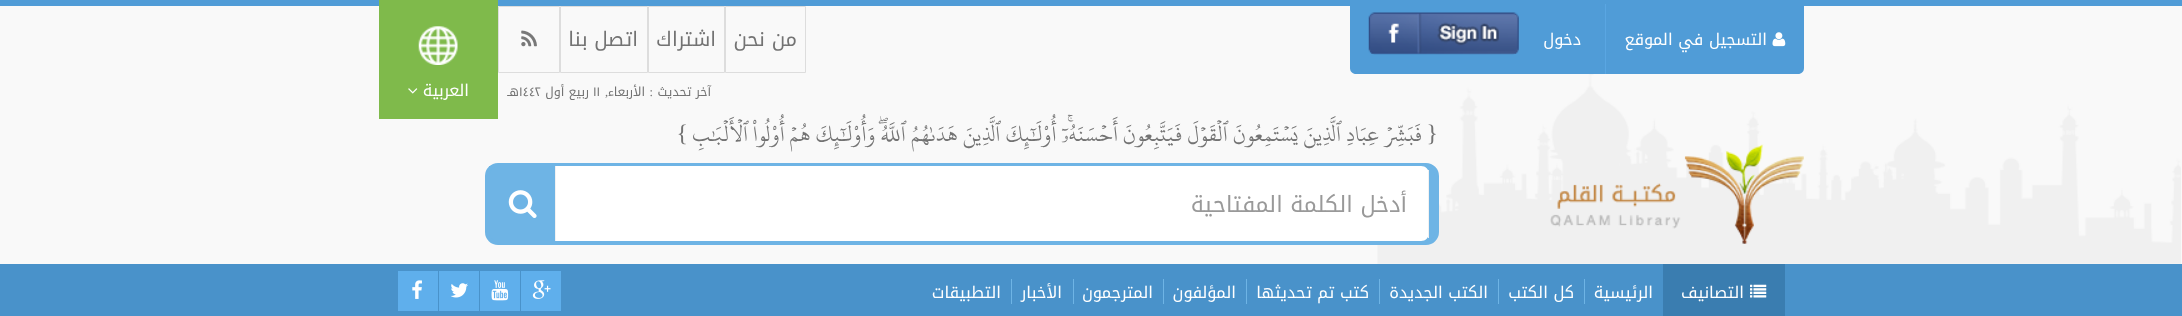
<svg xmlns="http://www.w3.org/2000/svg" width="2182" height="316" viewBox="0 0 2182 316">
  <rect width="100%" height="100%" fill="#f9f9f9"/>
  <image x="1377" y="71" width="804" height="193" href="img/1.png"/>
  <path d="M0 0h2182v6H0z" fill="#509cd7"/>
  <path d="M1350 6H1804V68C1804 71.5 1801.5 74 1798 74H1356C1352.5 74 1350 71.5 1350 68Z" fill="#509cd7"/>
  <image x="1772" y="32" width="14" height="15" href="img/2.png"/>
  <path d="M1605 4h1v70H1605z" fill="#5aa6e2"/>
  <image x="1368" y="12" width="151" height="43" href="img/3.png"/>
  <path d="M725.5 6.5h80v66H725.5z" fill="none" stroke="#ddd"/>
  <path d="M648.5 6.5h76v66H648.5z" fill="none" stroke="#ddd"/>
  <path d="M560.5 6.5h87v66H560.5z" fill="none" stroke="#ddd"/>
  <path d="M498.5 6.5h61v66H498.5z" fill="none" stroke="#ddd"/>
  <image x="521" y="30" width="16" height="17" href="img/4.png"/>
  <path d="M379 0h119v119H379z" fill="#7fba4b"/>
  <image x="418" y="26" width="40" height="39" href="img/5.png"/>
  <image x="408" y="88" width="10" height="6" href="img/6.png"/>
  <image x="1550" y="144" width="254" height="100" href="img/7.png"/>
  <rect x="487" y="165" width="950" height="78" rx="11" fill="#6eb4e5" stroke="#6eb4e5" stroke-width="4"/>
  <path d="M555 166H1421C1425.5 166 1429 169.5 1429 174V233C1429 237.5 1425.5 241 1421 241H555Z" fill="#fff"/>
  <path d="M1428 170h1v68H1428z" fill="#f1f1f1"/>
  <path d="M555 166h1v75H555z" fill="#f1f1f1"/>
  <path d="M489 166h1v1H489z" fill="#6eb4e5"/>
  <image x="508" y="190" width="29" height="28" href="img/8.png"/>
  <path d="M0 264h2182v52H0z" fill="#4992ca"/>
  <path d="M1663 264h122v52H1663z" fill="#3a7db0"/>
  <image x="1750" y="284" width="17" height="14" href="img/9.png"/>
  <path d="M1584 279h1v25H1584z" fill="#6eb4e5"/>
  <path d="M1498 279h1v25H1498z" fill="#6eb4e5"/>
  <path d="M1379 279h1v25H1379z" fill="#6eb4e5"/>
  <path d="M1246 279h1v25H1246z" fill="#6eb4e5"/>
  <path d="M1163 279h1v25H1163z" fill="#6eb4e5"/>
  <path d="M1073 279h1v25H1073z" fill="#6eb4e5"/>
  <path d="M1011 279h1v25H1011z" fill="#6eb4e5"/>
  <path d="M521 271h40v40H521z" fill="#5fafec"/>
  <image x="532" y="280" width="19" height="19" href="img/10.png"/>
  <path d="M480 271h40v40H480z" fill="#5fafec"/>
  <image x="491" y="280" width="18" height="21" href="img/11.png"/>
  <path d="M439 271h40v40H439z" fill="#5fafec"/>
  <image x="450" y="283" width="18" height="15" href="img/12.png"/>
  <path d="M398 271h40v40H398z" fill="#5fafec"/>
  <image x="412" y="280" width="10" height="19" href="img/13.png"/>
  <g font-family="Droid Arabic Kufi" font-size="16.25" direction="rtl" fill="#fff">
    <text x="1767" y="45">التسجيل في الموقع</text>
    <text x="1581" y="45">دخول</text>
  </g>
  <g font-family="Droid Arabic Kufi" font-size="20" direction="rtl" fill="#737373">
    <text x="797" y="46">من نحن</text>
    <text x="716" y="46">اشتراك</text>
    <text x="638" y="46">اتصل بنا</text>
  </g>
  <text x="711" y="96" font-family="Droid Arabic Kufi" font-size="12.5" direction="rtl" fill="#737373">آخر تحديث</text>
  <text x="653" y="96" font-family="Liberation Serif" font-size="12.5" direction="rtl" fill="#737373">:</text>
  <text x="645" y="96" font-family="Droid Arabic Kufi" font-size="12.5" direction="rtl" fill="#737373">الأربعاء</text>
  <text x="608" y="96" font-family="Liberation Serif" font-size="12.5" direction="rtl" fill="#737373">,</text>
  <text x="593" y="96" font-family="Droid Arabic Kufi" font-size="12.5" fill="#737373">١١</text>
  <text x="589" y="96" font-family="Droid Arabic Kufi" font-size="12.5" direction="rtl" fill="#737373">ربيع أول</text>
  <text x="519" y="96" font-family="Droid Arabic Kufi" font-size="12.5" fill="#737373">١٤٤٢</text>
  <text x="519" y="96" font-family="Droid Arabic Kufi" font-size="12.5" direction="rtl" fill="#737373">هـ</text>
  <text x="469" y="96" font-family="Droid Arabic Kufi" font-size="16.25" direction="rtl" fill="#fff">العربية</text>
  <text x="1438" y="141" font-family="Liberation Serif" font-size="23.75" direction="rtl" fill="#737373">{</text>
  <text x="1422" y="141" font-family="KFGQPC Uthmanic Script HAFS" font-size="23.75" direction="rtl" fill="#737373">فَبَشِّرۡ عِبَادِ ٱلَّذِينَ يَسۡتَمِعُونَ ٱلۡقَوۡلَ فَيَتَّبِعُونَ أَحۡسَنَهُۥٓۚ أُوْلَٰٓئِكَ ٱلَّذِينَ هَدَىٰهُمُ ٱللَّهُۖ وَأُوْلَٰٓئِكَ هُمۡ أُوْلُواْ ٱلۡأَلۡبَٰبِ</text>
  <text x="688" y="141" font-family="Liberation Serif" font-size="23.75" direction="rtl" fill="#737373">}</text>
  <text x="1407" y="212" font-family="Droid Arabic Kufi" font-size="22.5" direction="rtl" fill="#999">أدخل الکلمة المفتاحیة</text>
  <g font-family="Droid Arabic Kufi" font-size="16.25" direction="rtl" fill="#fff">
    <text x="1744" y="298">التصانيف</text>
    <text x="1653" y="298">الرئيسية</text>
    <text x="1574" y="298">كل الكتب</text>
    <text x="1488" y="298">الكتب الجديدة</text>
    <text x="1369" y="298">كتب تم تحديثها</text>
    <text x="1236" y="298">المؤلفون</text>
    <text x="1153" y="298">المترجمون</text>
    <text x="1062" y="298">الأخبار</text>
    <text x="1001" y="298">التطبيقات</text>
  </g>
</svg>
